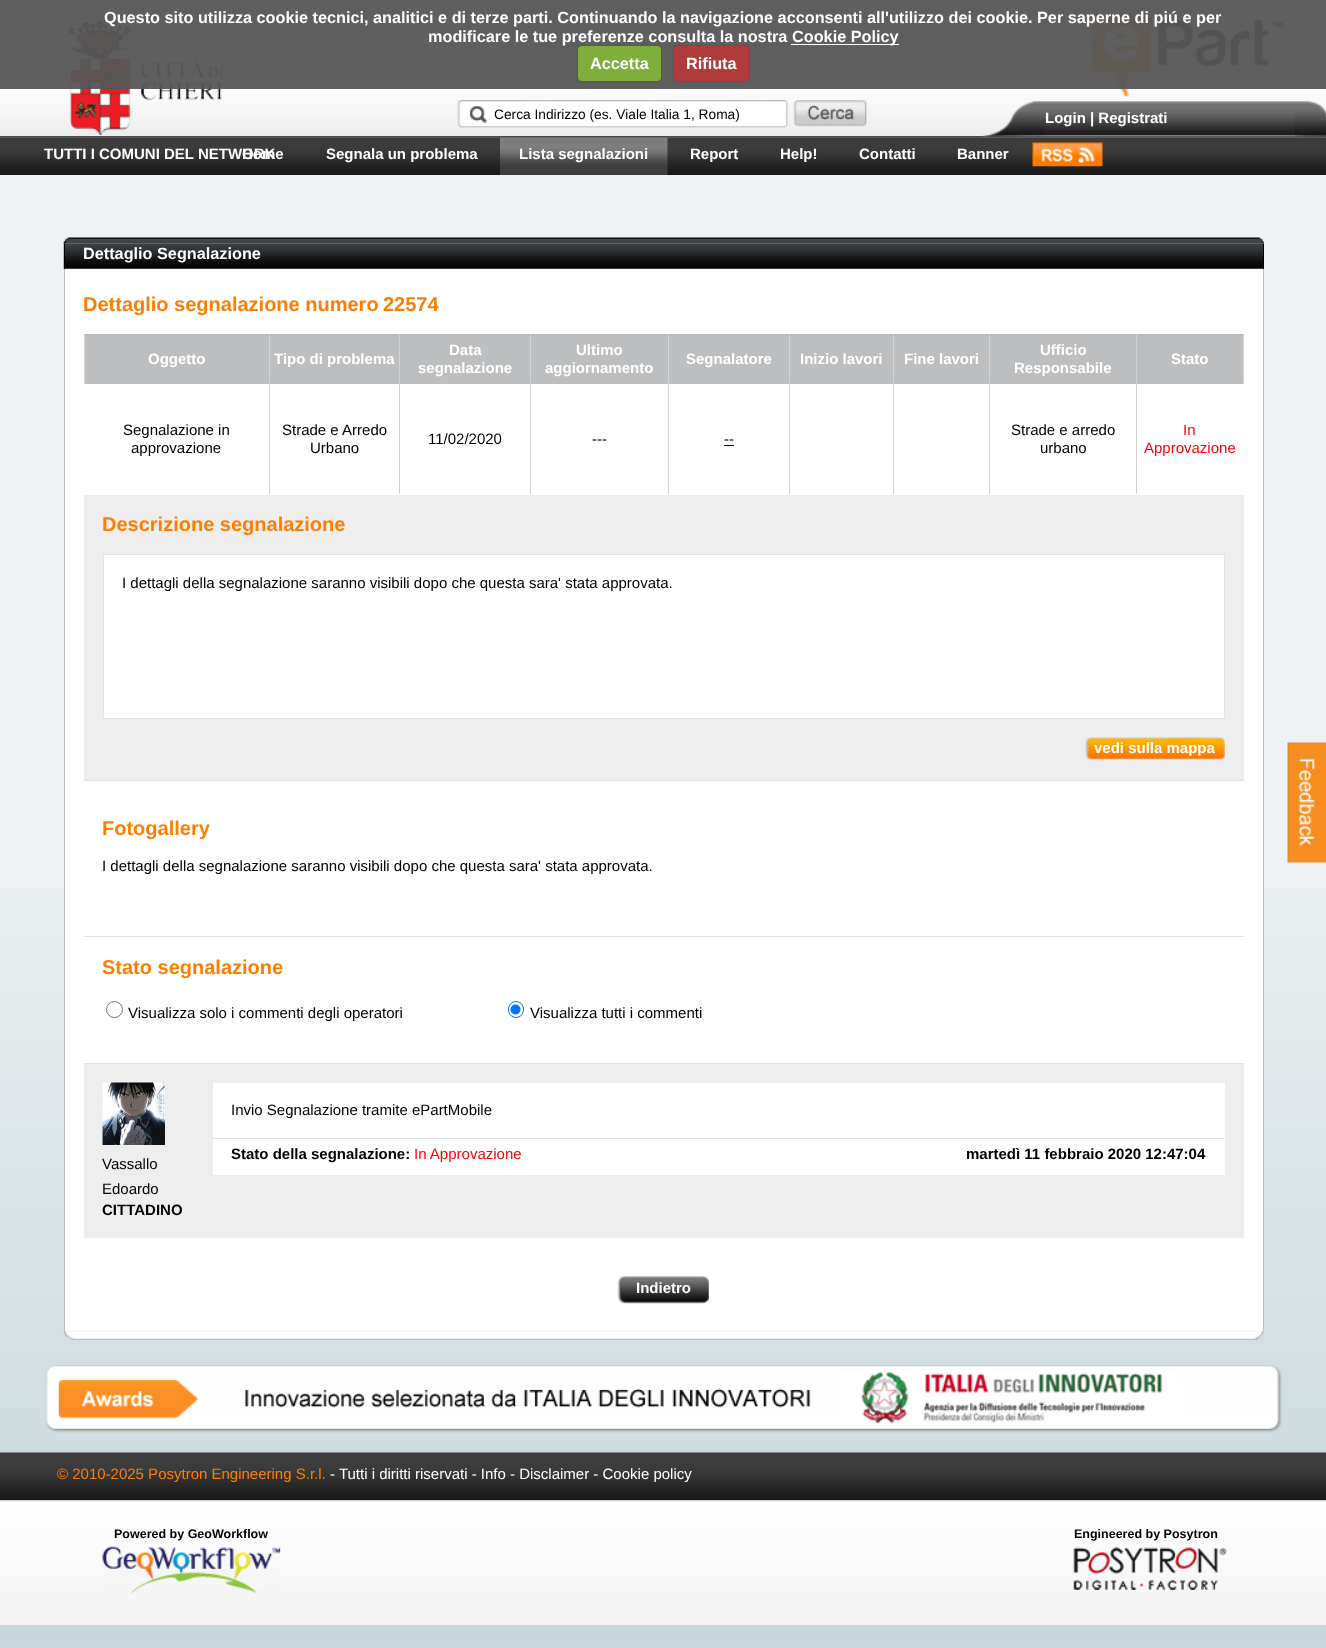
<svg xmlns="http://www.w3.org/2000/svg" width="1326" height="1648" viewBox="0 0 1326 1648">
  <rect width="100%" height="100%" fill="#eef2f4"/>
  <image x="0" y="888" width="1326" height="760" href="img/1.png"/>
  <image x="0" y="0" width="1326" height="138" href="img/2.png"/>
  <image x="67" y="20" width="157" height="115" href="img/3.png"/>
  <image x="1091" y="13" width="192" height="84" href="img/6.png"/>
  <path d="M0 0h1326v89H0z" fill="#565656f2"/>
  <path d="M791 44h108v1H791z" fill="#fff"/>
  <rect x="578" y="46" width="83" height="35" rx="4" fill="#00000040" filter="blur(1px)"/>
  <rect x="578" y="46" width="83" height="35" rx="4" fill="#7daf3b"/>
  <rect x="674" y="46" width="75" height="35" rx="4" fill="#00000040" filter="blur(1px)"/>
  <rect x="674" y="46" width="75" height="35" rx="4" fill="#af3b3b"/>
  <path d="M458 100h330v28H458z" fill="#fff"/>
  <image x="457" y="100" width="331" height="28" href="img/4.png"/>
  <image x="793" y="100" width="74" height="27" href="img/5.png"/>
  <image x="982" y="101" width="63" height="36" href="img/7.png"/>
  <image x="1045" y="101" width="250" height="36" href="img/8.png"/>
  <image x="1295" y="101" width="31" height="36" href="img/9.png"/>
  <image x="0" y="137" width="1326" height="38" href="img/10.png"/>
  <image x="500" y="137" width="168" height="38" href="img/11.png"/>
  <image x="1032" y="142" width="71" height="25" href="img/12.png"/>
  <image x="63" y="237" width="1201" height="7" href="img/13.png"/>
  <image x="63" y="243" width="1201" height="26" href="img/14.png"/>
  <path d="M1263 244h1v25H1263z" fill="#000"/>
  <path d="M64 244h1v25H64z" fill="#000"/>
  <path d="M65 269h1198v1062H65z" fill="#fff"/>
  <path d="M1263 269h1v1062H1263z" fill="#bdbcbd"/>
  <path d="M64 269h1v1062H64z" fill="#bdbcbd"/>
  <path d="M85 335h184v48H85z" fill="#bcbec0"/>
  <path d="M84 334h1160v1H84z" fill="#bcbec0"/>
  <path d="M1243 334h1v50H1243z" fill="#d1d3d4"/>
  <path d="M1136 383h1v112H1136z" fill="#d1d3d4"/>
  <path d="M1136 383h108v1H1136z" fill="#bcbec0"/>
  <path d="M1136 334h1v50H1136z" fill="#d1d3d4"/>
  <path d="M989 383h1v112H989z" fill="#d1d3d4"/>
  <path d="M989 383h149v1H989z" fill="#bcbec0"/>
  <path d="M989 334h1v50H989z" fill="#d1d3d4"/>
  <path d="M893 383h1v112H893z" fill="#d1d3d4"/>
  <path d="M893 383h97v1H893z" fill="#bcbec0"/>
  <path d="M893 334h1v50H893z" fill="#d1d3d4"/>
  <path d="M789 383h1v112H789z" fill="#d1d3d4"/>
  <path d="M789 383h105v1H789z" fill="#bcbec0"/>
  <path d="M789 334h1v50H789z" fill="#d1d3d4"/>
  <path d="M668 383h1v112H668z" fill="#d1d3d4"/>
  <path d="M668 383h122v1H668z" fill="#bcbec0"/>
  <path d="M668 334h1v50H668z" fill="#d1d3d4"/>
  <path d="M530 383h1v112H530z" fill="#d1d3d4"/>
  <path d="M530 383h139v1H530z" fill="#bcbec0"/>
  <path d="M530 334h1v50H530z" fill="#d1d3d4"/>
  <path d="M399 383h1v112H399z" fill="#d1d3d4"/>
  <path d="M399 383h132v1H399z" fill="#bcbec0"/>
  <path d="M399 334h1v50H399z" fill="#d1d3d4"/>
  <path d="M269 383h1v112H269z" fill="#d1d3d4"/>
  <path d="M269 383h131v1H269z" fill="#bcbec0"/>
  <path d="M269 334h1v50H269z" fill="#d1d3d4"/>
  <path d="M84 383h186v1H84z" fill="#bcbec0"/>
  <path d="M84 334h1v50H84z" fill="#d1d3d4"/>
  <path d="M270 335h129v48H270z" fill="#bcbec0"/>
  <path d="M400 335h130v48H400z" fill="#bcbec0"/>
  <path d="M531 335h137v48H531z" fill="#bcbec0"/>
  <path d="M669 335h120v48H669z" fill="#bcbec0"/>
  <path d="M790 335h103v48H790z" fill="#bcbec0"/>
  <path d="M894 335h95v48H894z" fill="#bcbec0"/>
  <path d="M990 335h146v48H990z" fill="#bcbec0"/>
  <path d="M1137 335h106v48H1137z" fill="#bcbec0"/>
  <path d="M269 494h1v1H269z" fill="#fff"/>
  <path d="M399 494h1v1H399z" fill="#fff"/>
  <path d="M530 494h1v1H530z" fill="#fff"/>
  <path d="M668 494h1v1H668z" fill="#fff"/>
  <path d="M789 494h1v1H789z" fill="#fff"/>
  <path d="M724 445h10v1H724z" fill="#000"/>
  <path d="M893 494h1v1H893z" fill="#fff"/>
  <path d="M989 494h1v1H989z" fill="#fff"/>
  <path d="M1136 494h2v1H1136z" fill="#fff"/>
  <path d="M84 495h1160v285H84z" fill="#eee"/>
  <path d="M84 780h1160v1H84z" fill="#e2e3e5"/>
  <path d="M103.5 554.5h1121v164H103.5z" fill="#fff" stroke="#e2e3e5"/>
  <image x="1085" y="737" width="140" height="23" href="img/15.png"/>
  <path d="M84 936h1160v1H84z" fill="#e2e3e5"/>
  <circle cx="114.5" cy="1009.5" r="8" fill="none" stroke="#767676"/>
  <rect x="508.5" y="1001.5" width="15" height="16" rx="7.5" fill="none" stroke="#0075ff"/>
  <circle cx="515.5" cy="1009.5" r="5" fill="#0075ff"/>
  <path d="M84 1064h1160v174H84z" fill="#eee"/>
  <path d="M84 1063h1160v1H84z" fill="#e2e3e5"/>
  <path d="M213 1083h1012v55H213z" fill="#fff"/>
  <path d="M213 1139h1012v36H213z" fill="#fff"/>
  <path d="M213 1138h1012v1H213z" fill="#e2e3e5"/>
  <image x="102" y="1082" width="63" height="63" href="img/16.png"/>
  <image x="617" y="1276" width="92" height="28" href="img/17.png"/>
  <image x="63" y="1331" width="1201" height="9" href="img/18.png"/>
  <image x="1287" y="742" width="39" height="121" href="img/19.png"/>
  <image x="45" y="1365" width="1237" height="68" href="img/20.png"/>
  <image x="0" y="1452" width="1326" height="48" href="img/21.png"/>
  <image x="0" y="1501" width="1326" height="124" href="img/22.png"/>
  <path d="M0 1500h1326v1H0z" fill="#cfcfcf"/>
  <image x="102" y="1546" width="179" height="49" href="img/23.png"/>
  <image x="1073" y="1547" width="154" height="43" href="img/24.png"/>
  <g font-family="Liberation Sans" font-size="16.25" font-weight="bold" fill="#fff">
    <text x="104" y="23">Questo sito utilizza cookie tecnici, analitici e di terze parti. Continuando la navigazione acconsenti all'utilizzo dei cookie. Per saperne di piú e per</text>
    <text x="428" y="42">modificare le tue preferenze consulta la nostra</text>
    <text x="792" y="42">Cookie Policy</text>
    <text x="590" y="69">Accetta</text>
    <text x="686" y="69">Rifiuta</text>
  </g>
  <text x="494" y="119" font-family="Liberation Sans" font-size="13.75" fill="#000">Cerca Indirizzo (es. Viale Italia 1, Roma)</text>
  <g font-family="Liberation Sans" font-size="15" font-weight="bold" fill="#fff">
    <text x="1045" y="123">Login | Registrati</text>
    <text x="242" y="159">Home</text>
    <text x="44" y="159">TUTTI I COMUNI DEL NETWORK</text>
    <text x="326" y="159">Segnala un problema</text>
    <text x="519" y="159">Lista segnalazioni</text>
    <text x="690" y="159">Report</text>
    <text x="780" y="159">Help!</text>
    <text x="859" y="159">Contatti</text>
    <text x="957" y="159">Banner</text>
  </g>
  <text x="83" y="259" font-family="Liberation Sans" font-size="16.25" font-weight="bold" fill="#fff">Dettaglio Segnalazione</text>
  <g font-family="Liberation Sans" font-size="20" font-weight="bold" fill="#ff7e00">
    <text x="83" y="311">Dettaglio segnalazione numero</text>
    <text x="383" y="311">22574</text>
  </g>
  <g font-family="Liberation Sans" font-size="15" font-weight="bold" fill="#fff">
    <text x="148" y="364">Oggetto</text>
    <text x="274" y="364">Tipo di problema</text>
    <text x="449" y="355">Data</text>
    <text x="418" y="373">segnalazione</text>
    <text x="576" y="355">Ultimo</text>
    <text x="545" y="373">aggiornamento</text>
    <text x="686" y="364">Segnalatore</text>
    <text x="800" y="364">Inizio lavori</text>
    <text x="904" y="364">Fine lavori</text>
    <text x="1040" y="355">Ufficio</text>
    <text x="1014" y="373">Responsabile</text>
    <text x="1171" y="364">Stato</text>
  </g>
  <g font-family="Liberation Sans" font-size="15" fill="#000">
    <text x="123" y="435">Segnalazione in</text>
    <text x="131" y="453">approvazione</text>
    <text x="282" y="435">Strade e Arredo</text>
    <text x="310" y="453">Urbano</text>
    <text x="428" y="444">11/02/2020</text>
    <text x="592" y="444">---</text>
    <text x="724" y="444">--</text>
    <text x="1011" y="435">Strade e arredo</text>
    <text x="1040" y="453">urbano</text>
  </g>
  <g font-family="Liberation Sans" font-size="15" fill="#f00">
    <text x="1183" y="435">In</text>
    <text x="1144" y="453">Approvazione</text>
  </g>
  <text x="102" y="531" font-family="Liberation Sans" font-size="20" font-weight="bold" fill="#ff7e00">Descrizione segnalazione</text>
  <text x="122" y="588" font-family="Liberation Sans" font-size="15" fill="#000">I dettagli della segnalazione saranno visibili dopo che questa sara' stata approvata.</text>
  <text x="1094" y="753" font-family="Liberation Sans" font-size="15" font-weight="bold" fill="#fff">vedi sulla mappa</text>
  <text x="102" y="835" font-family="Liberation Sans" font-size="20" font-weight="bold" fill="#ff7e00">Fotogallery</text>
  <text x="102" y="871" font-family="Liberation Sans" font-size="15" fill="#000">I dettagli della segnalazione saranno visibili dopo che questa sara' stata approvata.</text>
  <text x="102" y="974" font-family="Liberation Sans" font-size="20" font-weight="bold" fill="#ff7e00">Stato segnalazione</text>
  <g font-family="Liberation Sans" font-size="15" fill="#000">
    <text x="128" y="1018">Visualizza solo i commenti degli operatori</text>
    <text x="530" y="1018">Visualizza tutti i commenti</text>
    <text x="231" y="1115">Invio Segnalazione tramite ePartMobile</text>
  </g>
  <text x="231" y="1159" font-family="Liberation Sans" font-size="15" font-weight="bold" fill="#000">Stato della segnalazione:</text>
  <text x="414" y="1159" font-family="Liberation Sans" font-size="15" fill="#f00">In Approvazione</text>
  <text x="966" y="1159" font-family="Liberation Sans" font-size="15" font-weight="bold" fill="#000">martedì 11 febbraio 2020 12:47:04</text>
  <g font-family="Liberation Sans" font-size="15" fill="#000">
    <text x="102" y="1169">Vassallo</text>
    <text x="102" y="1194">Edoardo</text>
  </g>
  <text x="102" y="1215" font-family="Liberation Sans" font-size="15" font-weight="bold" fill="#000">CITTADINO</text>
  <text x="636" y="1293" font-family="Liberation Sans" font-size="15" font-weight="bold" fill="#fff">Indietro</text>
  <text x="57" y="1479" font-family="Liberation Sans" font-size="15" fill="#ff7e00">© 2010-2025 Posytron Engineering S.r.l.</text>
  <text x="330" y="1479" font-family="Liberation Sans" font-size="15" fill="#fff">- Tutti i diritti riservati - Info - Disclaimer - Cookie policy</text>
  <g font-family="Liberation Sans" font-size="12.5" font-weight="bold" fill="#000">
    <text x="114" y="1538">Powered by GeoWorkflow</text>
    <text x="1074" y="1538">Engineered by Posytron</text>
  </g>
</svg>
